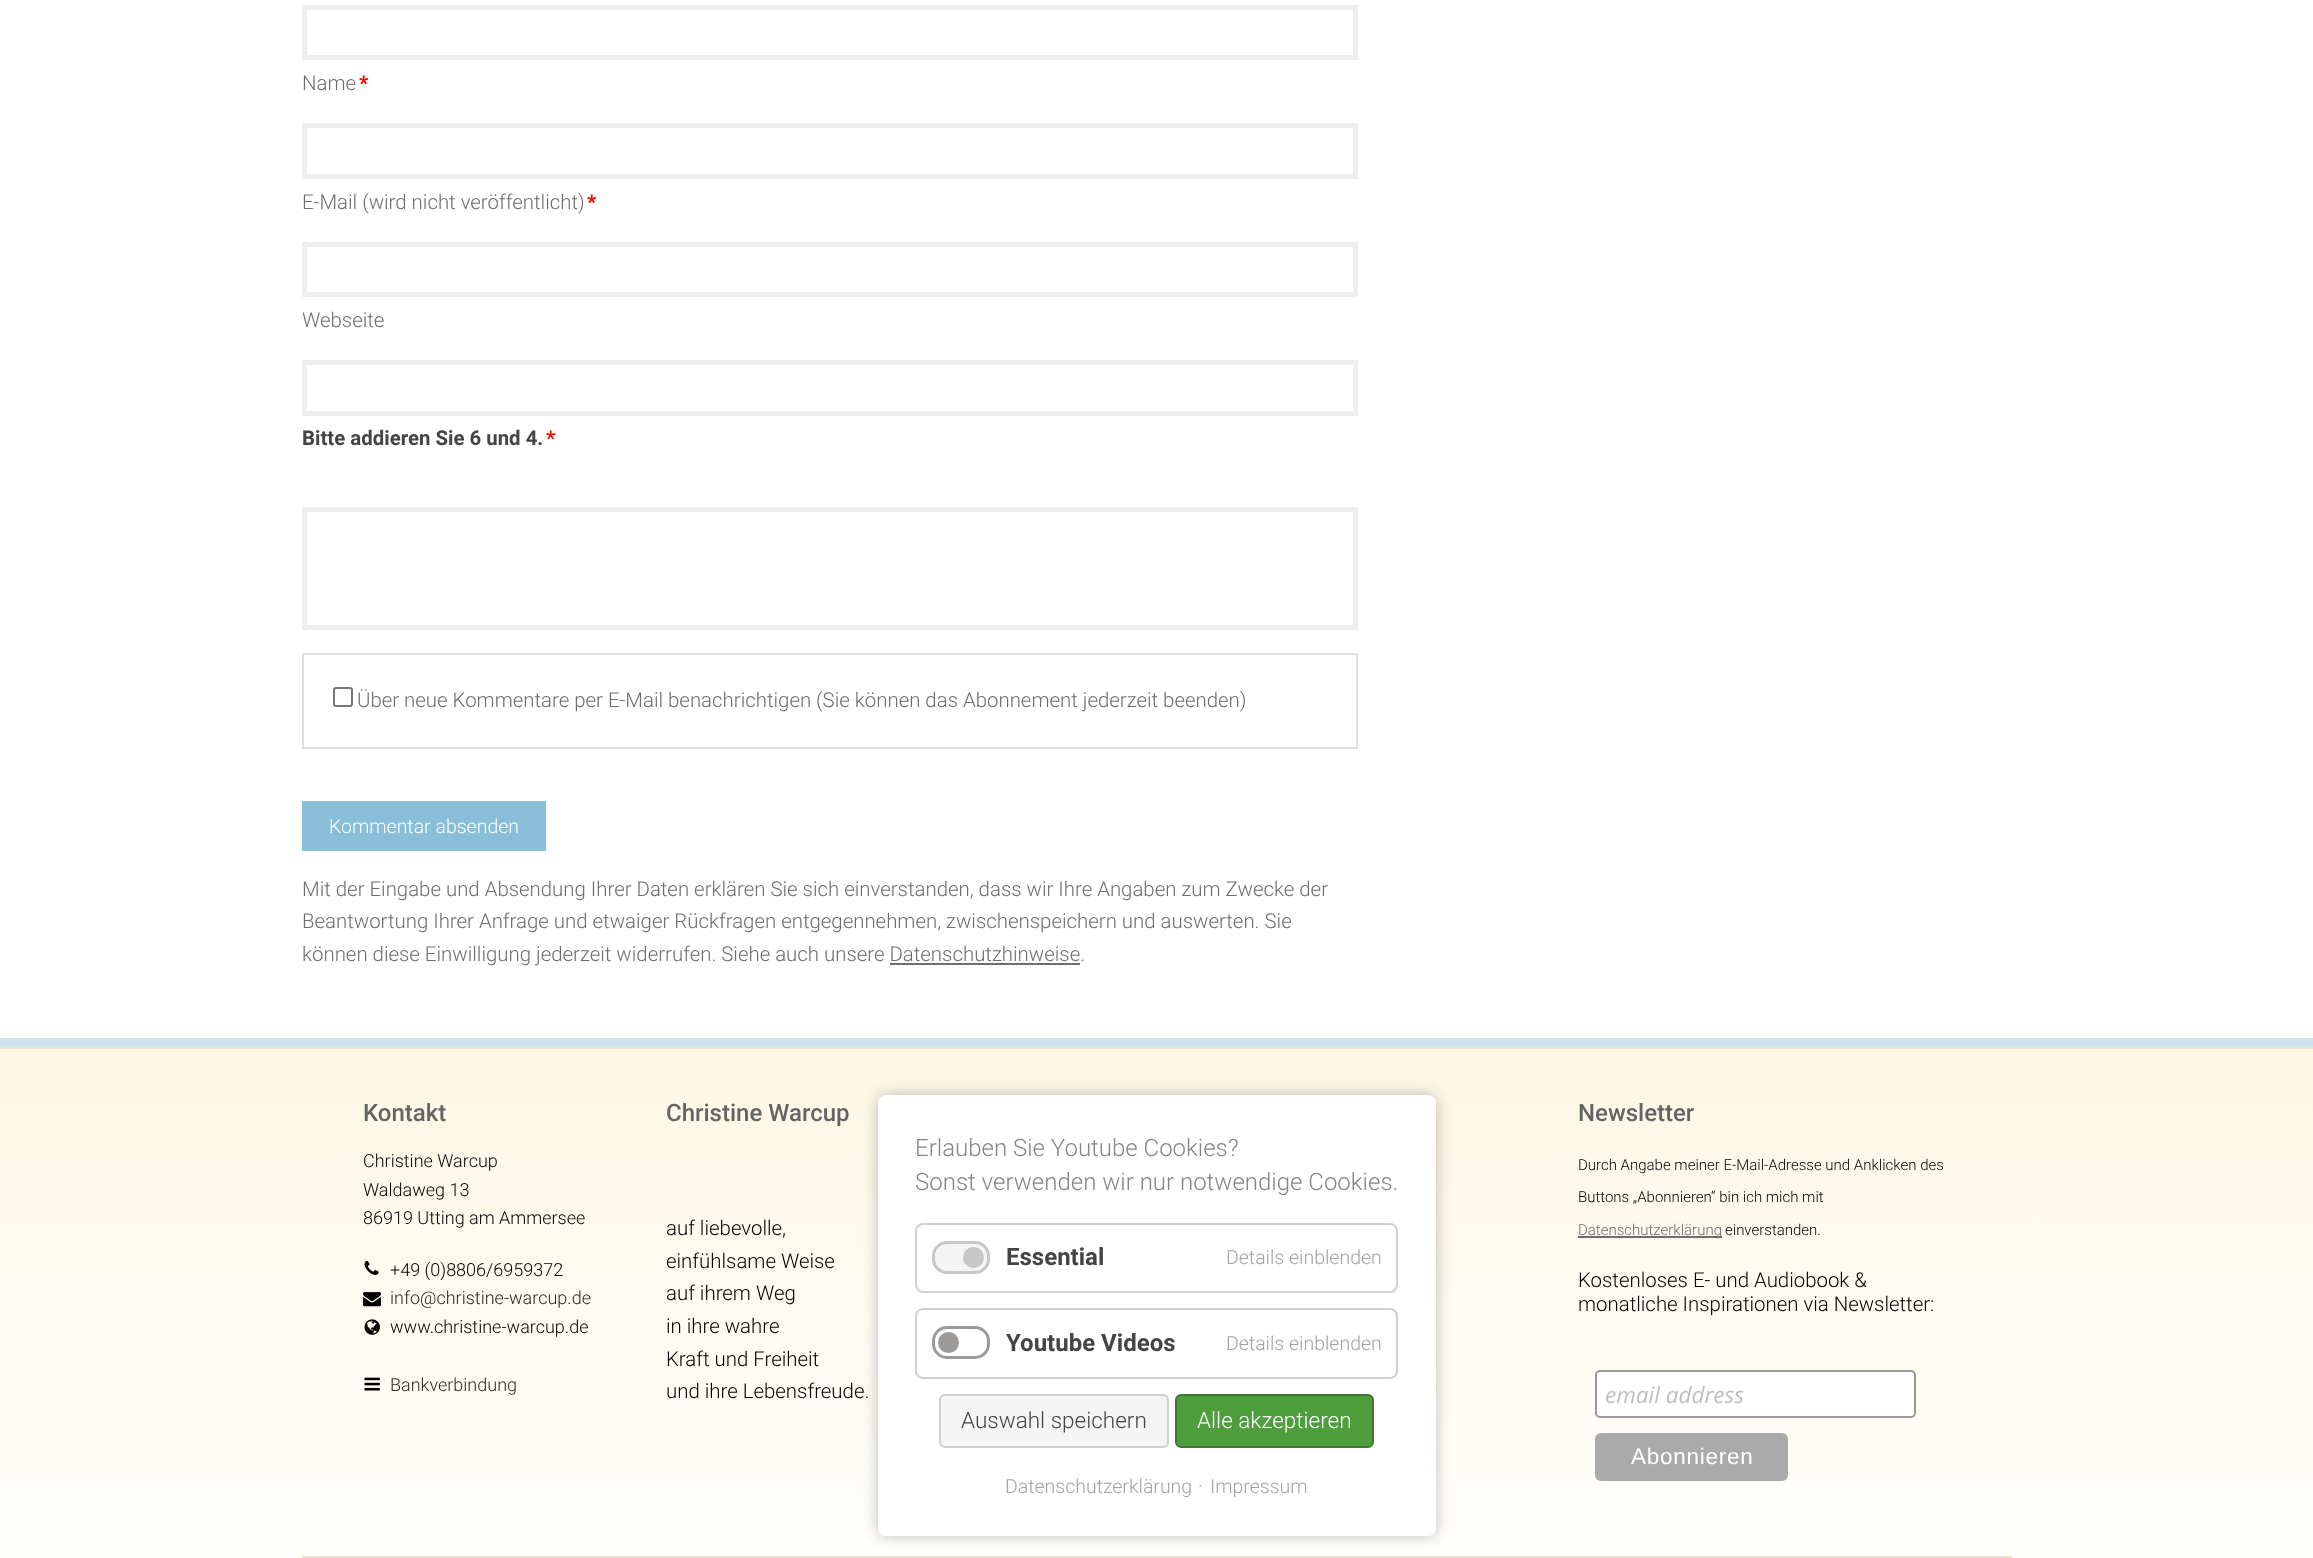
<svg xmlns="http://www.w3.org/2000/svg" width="2313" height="1558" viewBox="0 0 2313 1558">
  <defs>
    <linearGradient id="g1" gradientUnits="userSpaceOnUse" x1="1157" y1="1047" x2="1157" y2="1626"><stop offset="0" stop-color="#fdf7e4"/><stop offset="1" stop-color="#fff"/></linearGradient>
  </defs>
  <rect width="100%" height="100%" fill="#fff"/>
  <path d="M304.5 7.5h1051v50H304.5z" fill="none" stroke="#eee" stroke-width="5"/>
  <path d="M304.5 125.5h1051v51H304.5z" fill="none" stroke="#eee" stroke-width="5"/>
  <path d="M304.5 244.5h1051v50H304.5z" fill="none" stroke="#eee" stroke-width="5"/>
  <path d="M304.5 362.5h1051v51H304.5z" fill="none" stroke="#eee" stroke-width="5"/>
  <path d="M304.5 509.5h1051v118H304.5z" fill="none" stroke="#eee" stroke-width="5"/>
  <path d="M303 654h1054v94H303z" fill="none" stroke="#e0e0e0" stroke-width="2"/>
  <rect x="334" y="688" width="18" height="18" rx="2" fill="none" stroke="#767676" stroke-width="2"/>
  <path d="M302 801h244v50H302z" fill="#88bed8"/>
  <path d="M890 963h190v2H890z" fill="#6d6d6d"/>
  <path d="M0 1049h2313v509H0z" fill="url(#g1)"/>
  <path d="M0 1038h2313v9H0z" fill="#cee3ed"/>
  <path d="M0 1047h2313v2H0z" fill="#ede3cb"/>
  <image x="364" y="1260" width="15" height="15" href="img/1.png"/>
  <image x="363" y="1292" width="18" height="15" href="img/2.png"/>
  <image x="364" y="1319" width="16" height="16" href="img/3.png"/>
  <image x="364" y="1377" width="16" height="14" href="img/4.png"/>
  <path d="M1578 1236h144v2H1578z" fill="#6d6d6d"/>
  <rect x="1596" y="1371" width="319" height="46" rx="4" fill="#fff" stroke="#999" stroke-width="2"/>
  <rect x="1595" y="1433" width="193" height="48" rx="6" fill="#aaa"/>
  <path d="M302 1556h1710v2H302z" fill="#ede3cb"/>
  <rect x="878" y="1095" width="558" height="441" rx="8" fill="#00000040" filter="blur(7.5px)"/>
  <rect x="878" y="1095" width="558" height="441" rx="8" fill="#fff"/>
  <rect x="916" y="1224" width="481" height="68" rx="7" fill="none" stroke="#d0d0d0" stroke-width="2"/>
  <rect x="933.5" y="1242.5" width="55" height="30" rx="13.5" fill="#f4f4f4" stroke="#c8c7c5" stroke-width="3"/>
  <circle cx="973.5" cy="1257.5" r="10.5" fill="#c8c7c5"/>
  <rect x="916" y="1309" width="481" height="69" rx="7" fill="none" stroke="#d0d0d0" stroke-width="2"/>
  <rect x="933.5" y="1327.5" width="55" height="30" rx="13.5" fill="none" stroke="#9c9b99" stroke-width="3"/>
  <circle cx="948.5" cy="1342.5" r="10.5" fill="#9c9b99"/>
  <rect x="940" y="1395" width="228" height="52" rx="5" fill="#f5f5f5" stroke="#cfcfcf" stroke-width="2"/>
  <rect x="1176" y="1395" width="197" height="52" rx="5" fill="#4e9e3e" stroke="#3e7830" stroke-width="2"/>
  <text x="302" y="90" font-family="Roboto" font-size="20.4" font-weight="300" fill="#6d6d6d">Name</text>
  <text x="359" y="90" font-family="Roboto" font-size="20.4" font-weight="bold" fill="#f00">*</text>
  <text x="302" y="209" font-family="Roboto" font-size="20.4" font-weight="300" fill="#6d6d6d">E-Mail (wird nicht veröffentlicht)</text>
  <text x="587" y="209" font-family="Roboto" font-size="20.4" font-weight="bold" fill="#f00">*</text>
  <text x="302" y="327" font-family="Roboto" font-size="20.4" font-weight="300" fill="#6d6d6d">Webseite</text>
  <text x="302" y="445" font-family="Roboto" font-size="20.4" font-weight="bold" fill="#444">Bitte addieren Sie 6 und 4.</text>
  <text x="546" y="445" font-family="Roboto" font-size="20.4" font-weight="bold" fill="#f00">*</text>
  <text x="357" y="707" font-family="Roboto" font-size="20.4" font-weight="300" fill="#6d6d6d">Über neue Kommentare per E-Mail benachrichtigen (Sie können das Abonnement jederzeit beenden)</text>
  <text x="329" y="833" font-family="Roboto" font-size="19.5" font-weight="300" fill="#fff">Kommentar absenden</text>
  <g font-family="Roboto" font-size="20.4" font-weight="300" fill="#6d6d6d">
    <text x="302" y="896">Mit der Eingabe und Absendung Ihrer Daten erklären Sie sich einverstanden, dass wir Ihre Angaben zum Zwecke der</text>
    <text x="302" y="928">Beantwortung Ihrer Anfrage und etwaiger Rückfragen entgegennehmen, zwischenspeichern und auswerten. Sie</text>
    <text x="302" y="961">können diese Einwilligung jederzeit widerrufen. Siehe auch unsere Datenschutzhinweise.</text>
  </g>
  <text x="363" y="1121" font-family="Roboto" font-size="24" font-weight="500" fill="#646464">Kontakt</text>
  <g font-family="Roboto" font-size="18" font-weight="300" fill="#000">
    <text x="363" y="1167">Christine Warcup</text>
    <text x="363" y="1196">Waldaweg 13</text>
    <text x="363" y="1224">86919 Utting am Ammersee</text>
    <text x="390" y="1276">+49 (0)8806/6959372</text>
  </g>
  <text x="390" y="1304" font-family="Roboto" font-size="18" font-weight="300" fill="#282828">info@christine-warcup.de</text>
  <text x="390" y="1333" font-family="Roboto" font-size="18" font-weight="300" fill="#000">www.christine-warcup.de</text>
  <text x="390" y="1391" font-family="Roboto" font-size="18" font-weight="300" fill="#282828">Bankverbindung</text>
  <text x="666" y="1121" font-family="Roboto" font-size="24" font-weight="500" fill="#646464">Christine Warcup</text>
  <g font-family="Roboto" font-size="20.4" font-weight="300" fill="#000">
    <text x="666" y="1235">auf liebevolle,</text>
    <text x="666" y="1268">einfühlsame Weise</text>
    <text x="666" y="1300">auf ihrem Weg</text>
    <text x="666" y="1333">in ihre wahre</text>
    <text x="666" y="1366">Kraft und Freiheit</text>
    <text x="666" y="1398">und ihre Lebensfreude.</text>
  </g>
  <text x="1578" y="1121" font-family="Roboto" font-size="24" font-weight="500" fill="#646464">Newsletter</text>
  <g font-family="Roboto" font-size="15" font-weight="300" fill="#000">
    <text x="1578" y="1170">Durch Angabe meiner E-Mail-Adresse und Anklicken des</text>
    <text x="1578" y="1202">Buttons „Abonnieren“ bin ich mich mit</text>
  </g>
  <text x="1578" y="1235" font-family="Roboto" font-size="15" font-weight="300" fill="#6d6d6d">Datenschutzerklärung</text>
  <text x="1725" y="1235" font-family="Roboto" font-size="15" font-weight="300" fill="#000">einverstanden.</text>
  <g font-family="Roboto" font-size="20.4" font-weight="300" fill="#000">
    <text x="1578" y="1287">Kostenloses E- und Audiobook &amp;</text>
    <text x="1578" y="1311">monatliche Inspirationen via Newsletter:</text>
  </g>
  <text x="1605" y="1403" font-family="Open Sans" font-size="22.5" font-style="italic" fill="#bfbfbf">email address</text>
  <text x="1631" y="1464" font-family="Liberation Sans" font-size="22.5" letter-spacing="0.75" fill="#fff">Abonnieren</text>
  <g font-family="Roboto" font-size="24" font-weight="300" fill="#868686">
    <text x="915" y="1156">Erlauben Sie Youtube Cookies?</text>
    <text x="915" y="1190">Sonst verwenden wir nur notwendige Cookies.</text>
  </g>
  <text x="1006" y="1265" font-family="Roboto" font-size="24" font-weight="bold" fill="#444">Essential</text>
  <text x="1226" y="1264" font-family="Roboto" font-size="19.5" font-weight="300" fill="#a2a2a2">Details einblenden</text>
  <text x="1006" y="1351" font-family="Roboto" font-size="24" font-weight="bold" fill="#444">Youtube Videos</text>
  <text x="1226" y="1350" font-family="Roboto" font-size="19.5" font-weight="300" fill="#a2a2a2">Details einblenden</text>
  <text x="961" y="1428" font-family="Roboto" font-size="22.5" font-weight="300" fill="#444">Auswahl speichern</text>
  <text x="1197" y="1428" font-family="Roboto" font-size="22.5" font-weight="300" fill="#fff">Alle akzeptieren</text>
  <g font-family="Roboto" font-size="19.5" font-weight="300" fill="#a2a2a2">
    <text x="1005" y="1493">Datenschutzerklärung</text>
    <text x="1198" y="1493">·</text>
    <text x="1210" y="1493">Impressum</text>
  </g>
</svg>
